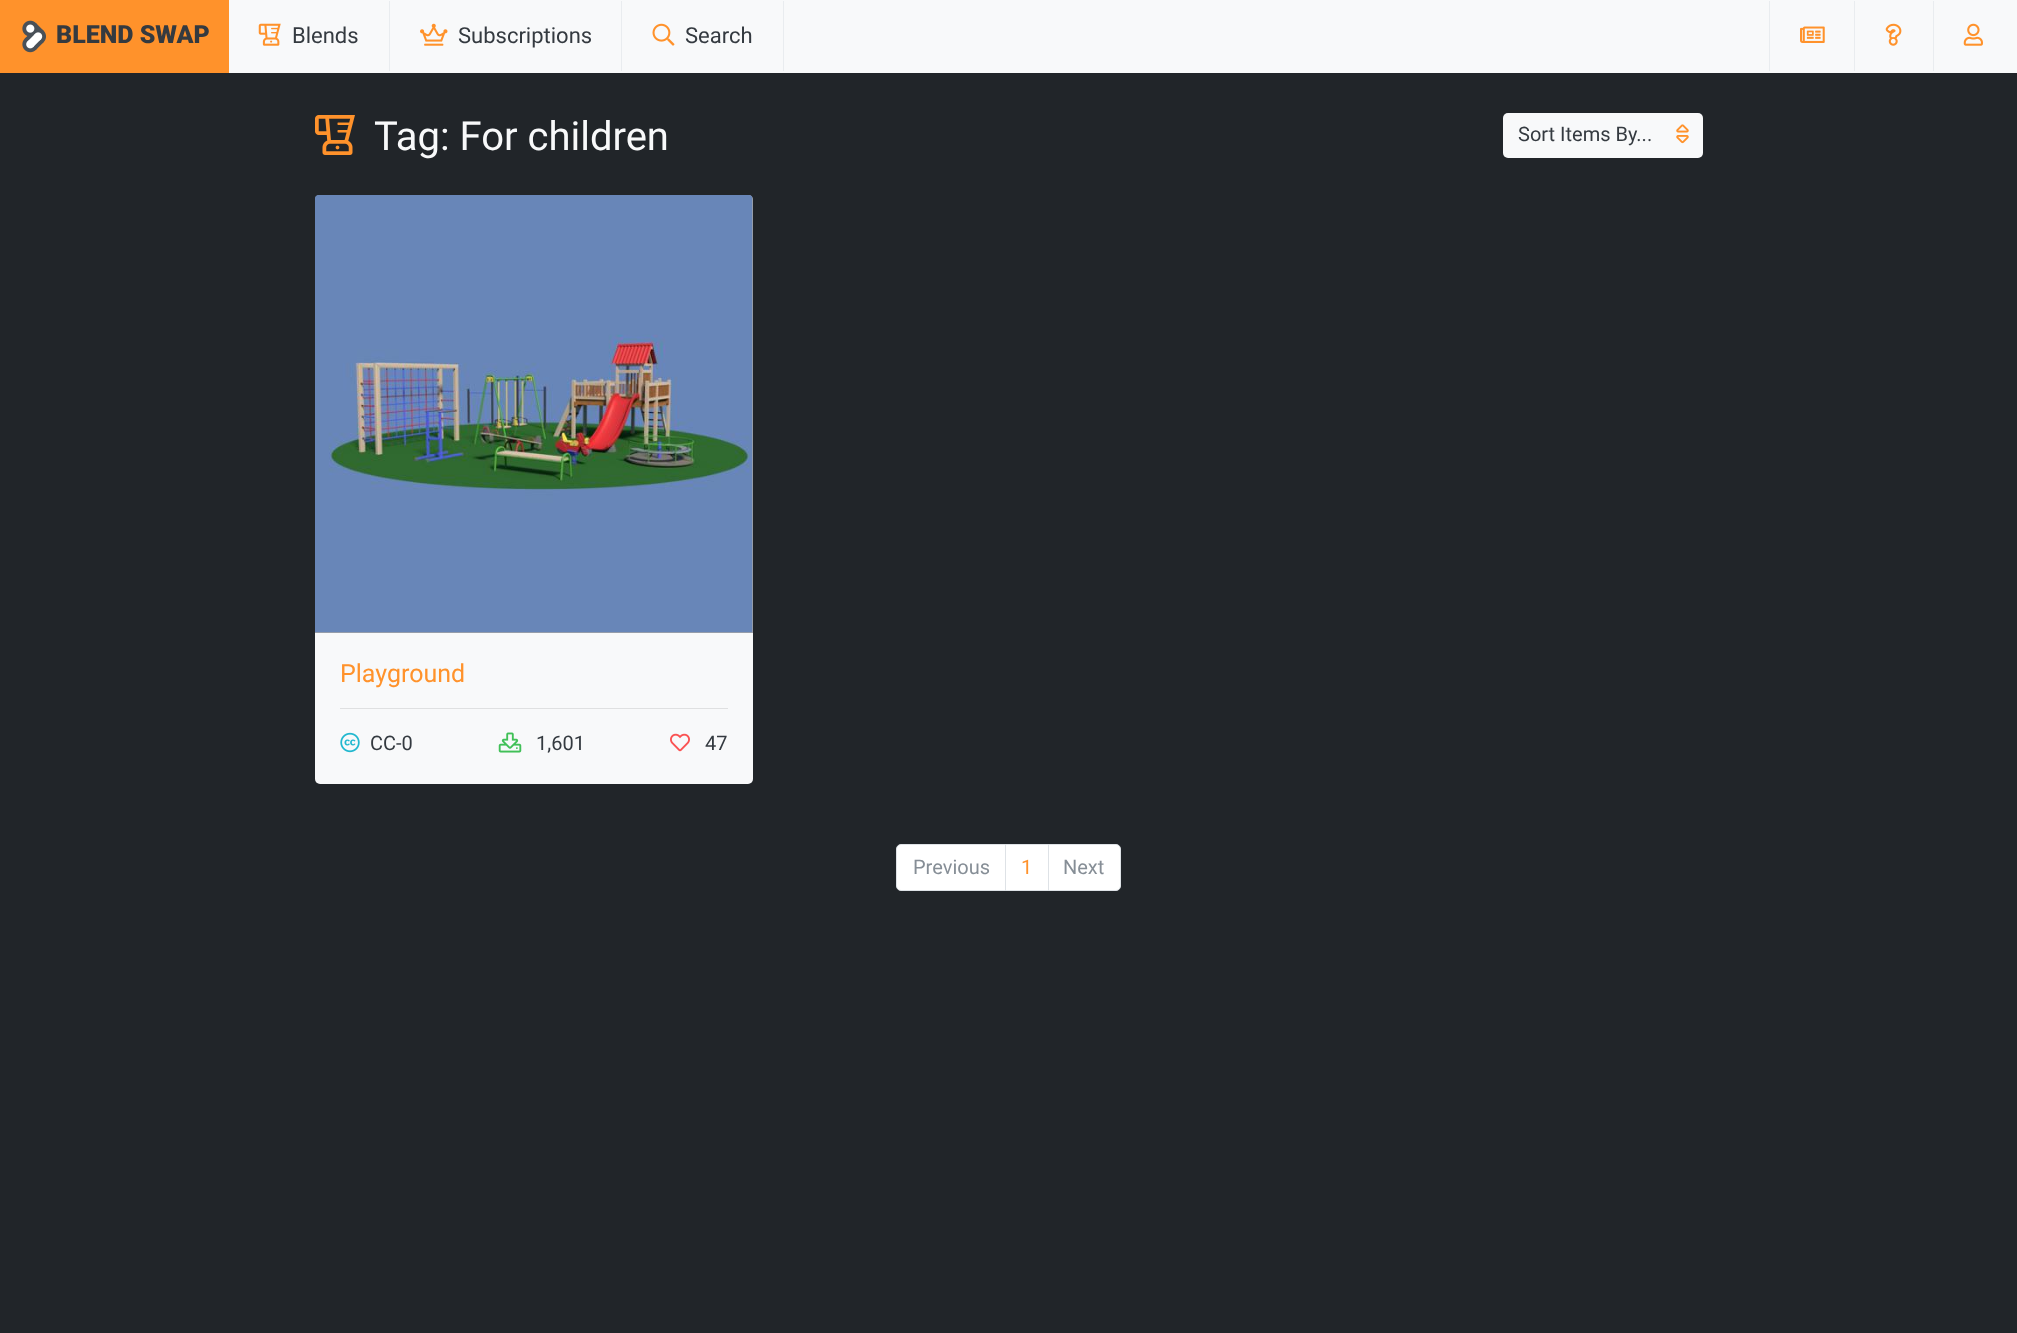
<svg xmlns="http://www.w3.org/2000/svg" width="2017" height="1333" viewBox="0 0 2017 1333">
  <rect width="100%" height="100%" fill="#212529"/>
  <path d="M229 0h1788v73H229z" fill="#f8f9fa"/>
  <path d="M0 0h229v73H0z" fill="#ff922b"/>
  <image x="22" y="20" width="24" height="33" href="img/1.png"/>
  <path d="M389 1h1v70H389z" fill="#e9ecef"/>
  <image x="258" y="23" width="23" height="23" href="img/2.png"/>
  <path d="M621 1h1v70H621z" fill="#e9ecef"/>
  <image x="420" y="23" width="28" height="23" href="img/3.png"/>
  <path d="M783 1h1v70H783z" fill="#e9ecef"/>
  <image x="652" y="23" width="23" height="23" href="img/4.png"/>
  <path d="M1769 1h1v70H1769z" fill="#e9ecef"/>
  <image x="1800" y="26" width="25" height="17" href="img/5.png"/>
  <path d="M1854 1h1v70H1854z" fill="#e9ecef"/>
  <image x="1885" y="23" width="17" height="23" href="img/6.png"/>
  <path d="M1933 1h1v70H1933z" fill="#e9ecef"/>
  <image x="1963" y="23" width="20" height="23" href="img/7.png"/>
  <image x="315" y="115" width="40" height="40" href="img/8.png"/>
  <rect x="1503" y="113" width="200" height="45" rx="5" fill="#f8f9fa"/>
  <image x="1676" y="124" width="13" height="20" href="img/9.png"/>
  <rect x="315" y="195" width="438" height="589" rx="5" fill="#f8f9fa"/>
  <path d="M319 195H749C751 195 753 197 753 199V633H315V199C315 197 317 195 319 195Z" fill="#80808040"/>
  <path d="M319 195H749C751 195 753 197 753 199V633H315V199C315 197 317 195 319 195Z" fill="#80808040"/>
  <path d="M319 195H749C751 195 753 197 753 199V633H315V199C315 197 317 195 319 195Z" fill="#80808040"/>
  <path d="M319 195H749C751 195 753 197 753 199V633H315V199C315 197 317 195 319 195Z" fill="#80808040"/>
  <image x="315" y="195" width="438" height="438" href="img/10.png"/>
  <path d="M340 708h388v1H340z" fill="#dfe0e1"/>
  <image x="340" y="732" width="20" height="21" href="img/11.png"/>
  <image x="498" y="732" width="24" height="21" href="img/12.png"/>
  <image x="670" y="733" width="20" height="19" href="img/13.png"/>
  <path d="M901 844.5H1005.5V890.5H901C898.5 890.5 896.5 888.5 896.5 886V849C896.5 846.5 898.5 844.5 901 844.5Z" fill="#fff" stroke="#dee2e6"/>
  <path d="M1005.5 844.5h43v46H1005.5z" fill="#fff" stroke="#dee2e6"/>
  <path d="M1048.5 844.5H1116C1118.5 844.5 1120.5 846.5 1120.5 849V886C1120.5 888.5 1118.5 890.5 1116 890.5H1048.5Z" fill="#fff" stroke="#dee2e6"/>
  <text x="56" y="43" font-family="Roboto" font-size="25" font-weight="900" fill="#343a40">BLEND SWAP</text>
  <g font-family="Roboto" font-size="22" fill="#343a40">
    <text x="292" y="43">Blends</text>
    <text x="458" y="43">Subscriptions</text>
    <text x="685" y="43">Search</text>
  </g>
  <text x="374" y="150" font-family="Roboto" font-size="40" fill="#f8f9fa">Tag: For children</text>
  <text x="1518" y="141" font-family="Roboto" font-size="20" fill="#343a40">Sort Items By...</text>
  <text x="340" y="682" font-family="Roboto" font-size="25" fill="#ff922b">Playground</text>
  <g font-family="Roboto" font-size="20" fill="#343a40">
    <text x="370" y="750">CC-0</text>
    <text x="536" y="750">1,601</text>
    <text x="705" y="750">47</text>
  </g>
  <text x="913" y="874" font-family="Roboto" font-size="20" fill="#868e96">Previous</text>
  <text x="1021" y="874" font-family="Roboto" font-size="20" fill="#ff922b">1</text>
  <text x="1063" y="874" font-family="Roboto" font-size="20" fill="#868e96">Next</text>
</svg>
